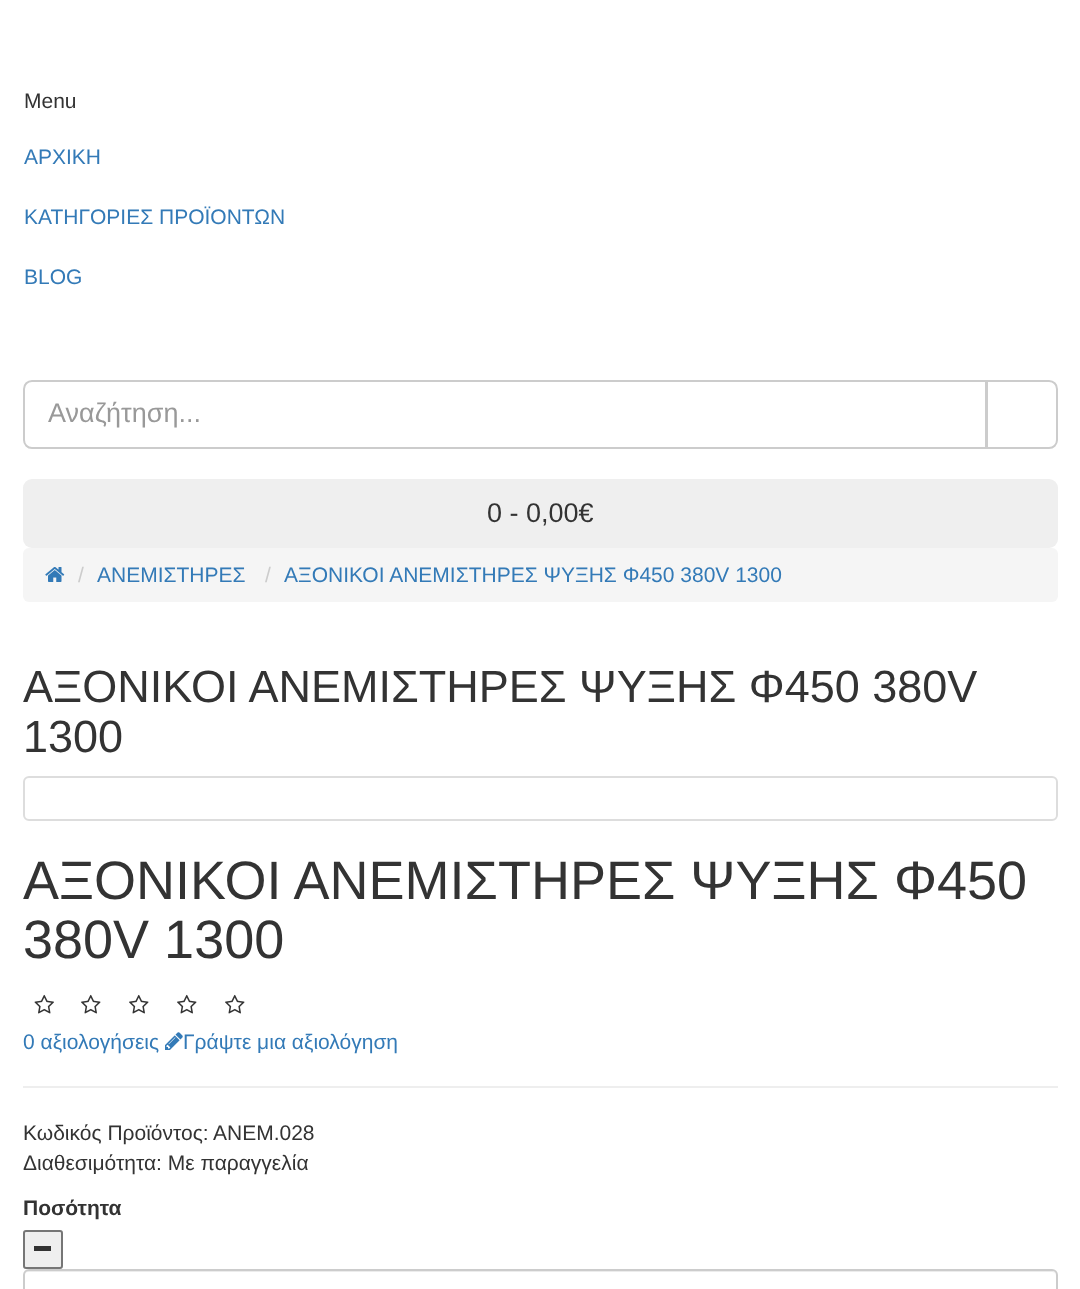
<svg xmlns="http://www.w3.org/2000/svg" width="1080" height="1289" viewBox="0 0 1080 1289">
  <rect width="100%" height="100%" fill="#fff"/>
  <path d="M32 381H986V448H32C27.5 448 24 444.5 24 440V389C24 384.5 27.5 381 32 381Z" fill="none" stroke="#ccc" stroke-width="2"/>
  <path d="M987 381H1049C1053.5 381 1057 384.5 1057 389V440C1057 444.5 1053.5 448 1049 448H987Z" fill="#fff" stroke="#ccc" stroke-width="2"/>
  <rect x="23" y="479" width="1035" height="69" rx="9" fill="#efefef"/>
  <rect x="23" y="548" width="1035" height="54" rx="6" fill="#f5f5f5"/>
  <image x="45" y="567" width="20" height="15" href="img/1.png"/>
  <rect x="24" y="777" width="1033" height="43" rx="5" fill="none" stroke="#ddd" stroke-width="2"/>
  <image x="34" y="994" width="20" height="20" href="img/2.png"/>
  <image x="81" y="994" width="20" height="20" href="img/3.png"/>
  <image x="129" y="994" width="20" height="20" href="img/3.png"/>
  <image x="177" y="994" width="20" height="20" href="img/3.png"/>
  <image x="225" y="994" width="20" height="20" href="img/3.png"/>
  <image x="165" y="1032" width="18" height="18" href="img/4.png"/>
  <path d="M23 1086h1035v2H23z" fill="#eee"/>
  <rect x="24" y="1231" width="38" height="37" rx="2" fill="#efefef" stroke="#767676" stroke-width="2"/>
  <path d="M34 1246h17v5H34z" fill="#333"/>
  <path d="M28 1272H1052C1054 1272 1056 1274 1056 1276C1056 1273 1054 1271 1051 1271H29C26 1271 24 1273 24 1276C24 1274 26 1272 28 1272Z" fill="#ececec"/>
  <rect x="24" y="1270" width="1033" height="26" rx="5" fill="none" stroke="#ccc" stroke-width="2"/>
  <text x="24" y="108" font-family="Liberation Sans" font-size="21" fill="#333">Menu</text>
  <g font-family="Liberation Sans" font-size="21" fill="#337ab7">
    <text x="24" y="164">ΑΡΧΙΚΗ</text>
    <text x="24" y="224">ΚΑΤΗΓΟΡΙΕΣ ΠΡΟΪΟΝΤΩΝ</text>
    <text x="24" y="284">BLOG</text>
  </g>
  <text x="48" y="422" font-family="Liberation Sans" font-size="27" fill="#999">Αναζήτηση...</text>
  <text x="487" y="522" font-family="Liberation Sans" font-size="27" fill="#333">0 - 0,00€</text>
  <text x="78" y="582" font-family="Liberation Sans" font-size="21" fill="#ccc">/</text>
  <text x="97" y="582" font-family="Liberation Sans" font-size="21" fill="#337ab7">ΑΝΕΜΙΣΤΗΡΕΣ</text>
  <text x="265" y="582" font-family="Liberation Sans" font-size="21" fill="#ccc">/</text>
  <text x="284" y="582" font-family="Liberation Sans" font-size="21" fill="#337ab7">ΑΞΟΝΙΚΟΙ ΑΝΕΜΙΣΤΗΡΕΣ ΨΥΞΗΣ Φ450 380V 1300</text>
  <g font-family="Liberation Sans" font-size="45" fill="#333">
    <text x="23" y="702">ΑΞΟΝΙΚΟΙ ΑΝΕΜΙΣΤΗΡΕΣ ΨΥΞΗΣ Φ450 380V</text>
    <text x="23" y="752">1300</text>
  </g>
  <g font-family="Liberation Sans" font-size="54" fill="#333">
    <text x="23" y="899">ΑΞΟΝΙΚΟΙ ΑΝΕΜΙΣΤΗΡΕΣ ΨΥΞΗΣ Φ450</text>
    <text x="23" y="958">380V 1300</text>
  </g>
  <g font-family="Liberation Sans" font-size="21" fill="#337ab7">
    <text x="23" y="1049">0 αξιολογήσεις</text>
    <text x="183" y="1049">Γράψτε μια αξιολόγηση</text>
  </g>
  <g font-family="Liberation Sans" font-size="21" fill="#333">
    <text x="23" y="1140">Κωδικός Προϊόντος:</text>
    <text x="213" y="1140">ΑΝΕΜ.028</text>
    <text x="23" y="1170">Διαθεσιμότητα: Με παραγγελία</text>
  </g>
  <text x="23" y="1215" font-family="Liberation Sans" font-size="21" font-weight="bold" fill="#333">Ποσότητα</text>
</svg>
